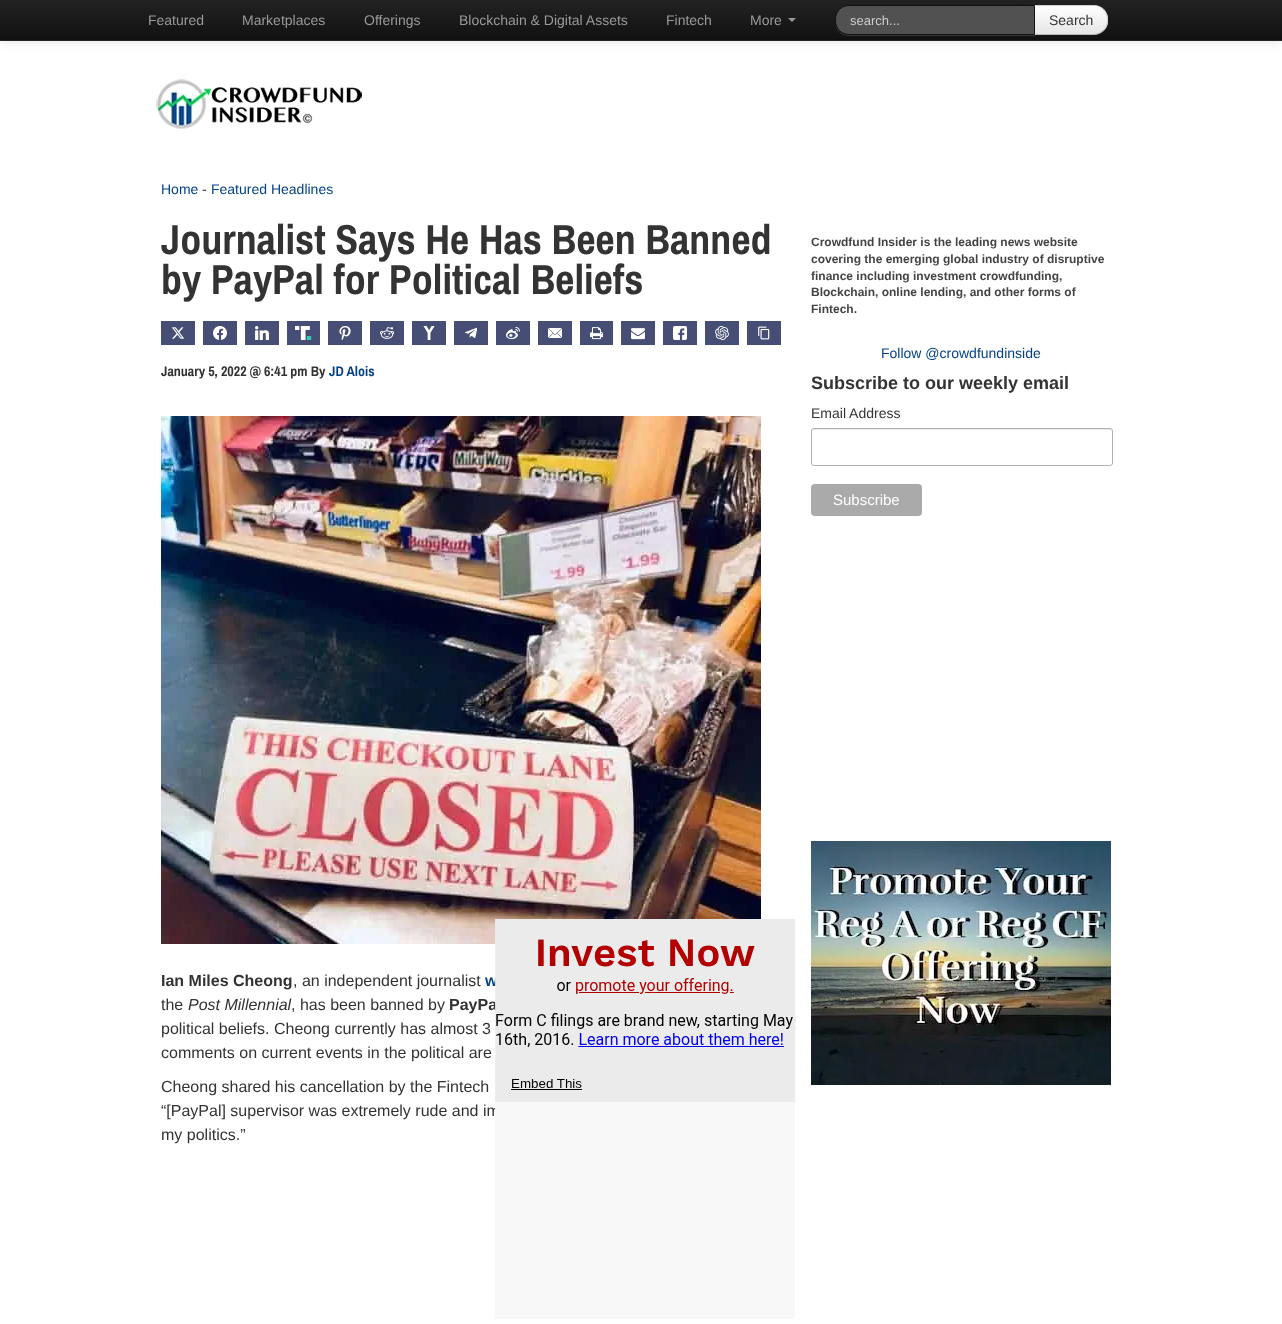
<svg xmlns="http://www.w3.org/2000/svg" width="1282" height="1324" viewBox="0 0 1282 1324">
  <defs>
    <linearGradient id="g1" gradientUnits="userSpaceOnUse" x1="641" y1="0" x2="641" y2="40"><stop offset="0" stop-color="#222"/><stop offset="1" stop-color="#111"/></linearGradient>
    <clipPath id="clip1"><path d="M1034 5H1094C1101.5 5 1108 11.5 1108 19V21C1108 28.5 1101.5 35 1094 35H1034Z"/></clipPath>
    <linearGradient id="g2" gradientUnits="userSpaceOnUse" x1="1071" y1="6" x2="1071" y2="34"><stop offset="0" stop-color="#fff"/><stop offset="1" stop-color="#e6e6e6"/></linearGradient>
  </defs>
  <rect width="100%" height="100%" fill="#fff"/>
  <path d="M0 1h1282v41H0z" fill="#0000001a" filter="blur(5px)"/>
  <path d="M0 0h1282v39H0z" fill="url(#g1)"/>
  <path d="M0 39h1282v1H0z" fill="#0f0f0f"/>
  <path d="M0 40h1282v1H0z" fill="#252525"/>
  <path d="M788 18H796L792 22Z" fill="#999"/>
  <path d="M1034 5H1094C1101.5 5 1108 11.5 1108 19V21C1108 28.5 1101.5 35 1094 35H1034Z" fill="#f5f5f5"/>
  <g clip-path="url(#clip1)">
    <path d="M1035 6h73v28H1035z" fill="url(#g2)"/>
  </g>
  <path d="M1034 5L1035 6H1094C1098 6 1101 8 1103 10L1104 9C1102 6 1098 5 1094 5Z" fill="#00000026"/>
  <path d="M1108 21C1108 16.5 1107.5 12.5 1104 9L1103 10C1108.5 15 1108.5 25 1103 30L1104 31C1106.5 28.5 1108 25 1108 21Z" fill="#00000026"/>
  <path d="M1094 35C1098 35 1102 34 1104 31L1103 30C1101 32 1098 34 1094 34H1035L1034 35Z" fill="#00000040"/>
  <path d="M835 21V22C835 30 841 36 849 36H1035V35H849C841 35 835 29 835 21Z" fill="#363636"/>
  <path d="M849 5.5H1034.5V34.5H849C841.5 34.5 835.5 28.5 835.5 21V19C835.5 11.5 841.5 5.5 849 5.5Z" fill="#515151" stroke="#111"/>
  <image x="156" y="79" width="206" height="50" href="img/1.png"/>
  <path d="M161 321h34v24H161z" fill="#464e75"/>
  <image x="171" y="327" width="14" height="12" href="img/2.png"/>
  <path d="M203 321h34v24H203z" fill="#464e75"/>
  <image x="213" y="326" width="14" height="14" href="img/3.png"/>
  <path d="M245 321h34v24H245z" fill="#464e75"/>
  <image x="255" y="326" width="14" height="14" href="img/4.png"/>
  <path d="M287 321h33v24H287z" fill="#464e75"/>
  <image x="295" y="326" width="17" height="14" href="img/5.png"/>
  <path d="M328 321h34v24H328z" fill="#464e75"/>
  <image x="339" y="326" width="12" height="14" href="img/6.png"/>
  <path d="M370 321h34v24H370z" fill="#464e75"/>
  <image x="380" y="327" width="14" height="12" href="img/7.png"/>
  <path d="M412 321h34v24H412z" fill="#464e75"/>
  <image x="423" y="326" width="12" height="14" href="img/8.png"/>
  <path d="M454 321h34v24H454z" fill="#464e75"/>
  <image x="465" y="327" width="12" height="11" href="img/9.png"/>
  <path d="M496 321h34v24H496z" fill="#464e75"/>
  <image x="506" y="327" width="14" height="13" href="img/10.png"/>
  <path d="M538 321h34v24H538z" fill="#464e75"/>
  <image x="548" y="328" width="14" height="10" href="img/11.png"/>
  <path d="M580 321h33v24H580z" fill="#464e75"/>
  <image x="590" y="327" width="13" height="13" href="img/12.png"/>
  <path d="M621 321h34v24H621z" fill="#464e75"/>
  <image x="631" y="328" width="14" height="12" href="img/13.png"/>
  <path d="M663 321h34v24H663z" fill="#464e75"/>
  <image x="673" y="326" width="14" height="14" href="img/14.png"/>
  <path d="M705 321h34v24H705z" fill="#464e75"/>
  <image x="715" y="326" width="14" height="14" href="img/15.png"/>
  <path d="M747 321h34v24H747z" fill="#464e75"/>
  <image x="758" y="326" width="12" height="14" href="img/16.png"/>
  <image x="161" y="416" width="600" height="528" href="img/17.png"/>
  <path d="M814 430H1110C1111 430 1112 431 1112 432C1112 431 1112 429 1110 429H813L812 432C812 431 813 430 814 430Z" fill="#ececec"/>
  <rect x="811.5" y="428.5" width="301" height="37" rx="2.5" fill="none" stroke="#abb0b2"/>
  <rect x="811" y="484" width="111" height="32" rx="4" fill="#aaa"/>
  <image x="811" y="841" width="300" height="244" href="img/19.png"/>
  <g font-family="Liberation Sans" font-size="14" fill="#999">
    <text x="148" y="25">Featured</text>
    <text x="242" y="25">Marketplaces</text>
    <text x="364" y="25">Offerings</text>
    <text x="459" y="25">Blockchain &amp; Digital Assets</text>
    <text x="666" y="25">Fintech</text>
    <text x="750" y="25">More</text>
  </g>
  <text x="850" y="25" font-family="Liberation Sans" font-size="13" fill="#ccc">search...</text>
  <text x="1049" y="25" font-family="Liberation Sans" font-size="14" fill="#333">Search</text>
  <text x="161" y="194" font-family="Liberation Sans" font-size="14" fill="#034184">Home</text>
  <text x="202" y="194" font-family="Liberation Sans" font-size="14" fill="#333">-</text>
  <text x="211" y="194" font-family="Liberation Sans" font-size="14" fill="#034184">Featured Headlines</text>
  <g font-family="Archivo Narrow" font-size="42" font-weight="bold" fill="#333">
    <text x="161" y="254">Journalist Says He Has Been Banned</text>
    <text x="161" y="294">by PayPal for Political Beliefs</text>
  </g>
  <text x="161" y="376" font-family="Archivo Narrow" font-size="14" font-weight="bold" fill="#333">January 5, 2022 @ 6:41 pm By</text>
  <text x="329" y="376" font-family="Archivo Narrow" font-size="14" font-weight="bold" fill="#034184">JD Alois</text>
  <text x="161" y="986" font-family="Liberation Sans" font-size="16" font-weight="bold" fill="#333">Ian Miles Cheong</text>
  <text x="293" y="986" font-family="Liberation Sans" font-size="16" fill="#333">, an independent journalist</text>
  <text x="485" y="986" font-family="Liberation Sans" font-size="16" font-weight="bold" fill="#034184">w</text>
  <text x="161" y="1010" font-family="Liberation Sans" font-size="16" fill="#333">the</text>
  <text x="188" y="1010" font-family="Liberation Sans" font-size="16" font-style="italic" fill="#333">Post Millennial</text>
  <text x="291" y="1010" font-family="Liberation Sans" font-size="16" fill="#333">, has been banned by</text>
  <text x="449" y="1010" font-family="Liberation Sans" font-size="16" font-weight="bold" fill="#333">PayPa</text>
  <g font-family="Liberation Sans" font-size="16" fill="#333">
    <text x="161" y="1034">political beliefs. Cheong currently has almost 3</text>
    <text x="161" y="1058">comments on current events in the political are</text>
    <text x="161" y="1092">Cheong shared his cancellation by the Fintech</text>
    <text x="161" y="1116">“[PayPal] supervisor was extremely rude and im</text>
    <text x="161" y="1140">my politics.”</text>
  </g>
  <image x="495" y="919" width="301" height="400" href="img/18.png"/>
  <g font-family="Liberation Sans" font-size="12" font-weight="bold" fill="#444">
    <text x="811" y="246">Crowdfund Insider is the leading news website</text>
    <text x="811" y="263">covering the emerging global industry of disruptive</text>
    <text x="811" y="280">finance including investment crowdfunding,</text>
    <text x="811" y="296">Blockchain, online lending, and other forms of</text>
    <text x="811" y="313">Fintech.</text>
  </g>
  <text x="881" y="358" font-family="Liberation Sans" font-size="14" fill="#034184">Follow @crowdfundinside</text>
  <text x="811" y="389" font-family="Liberation Sans" font-size="18" font-weight="bold" fill="#333">Subscribe to our weekly email</text>
  <text x="811" y="418" font-family="Liberation Sans" font-size="14" fill="#333">Email Address</text>
  <text x="833" y="505" font-family="Liberation Sans" font-size="15" fill="#fff">Subscribe</text>
</svg>
